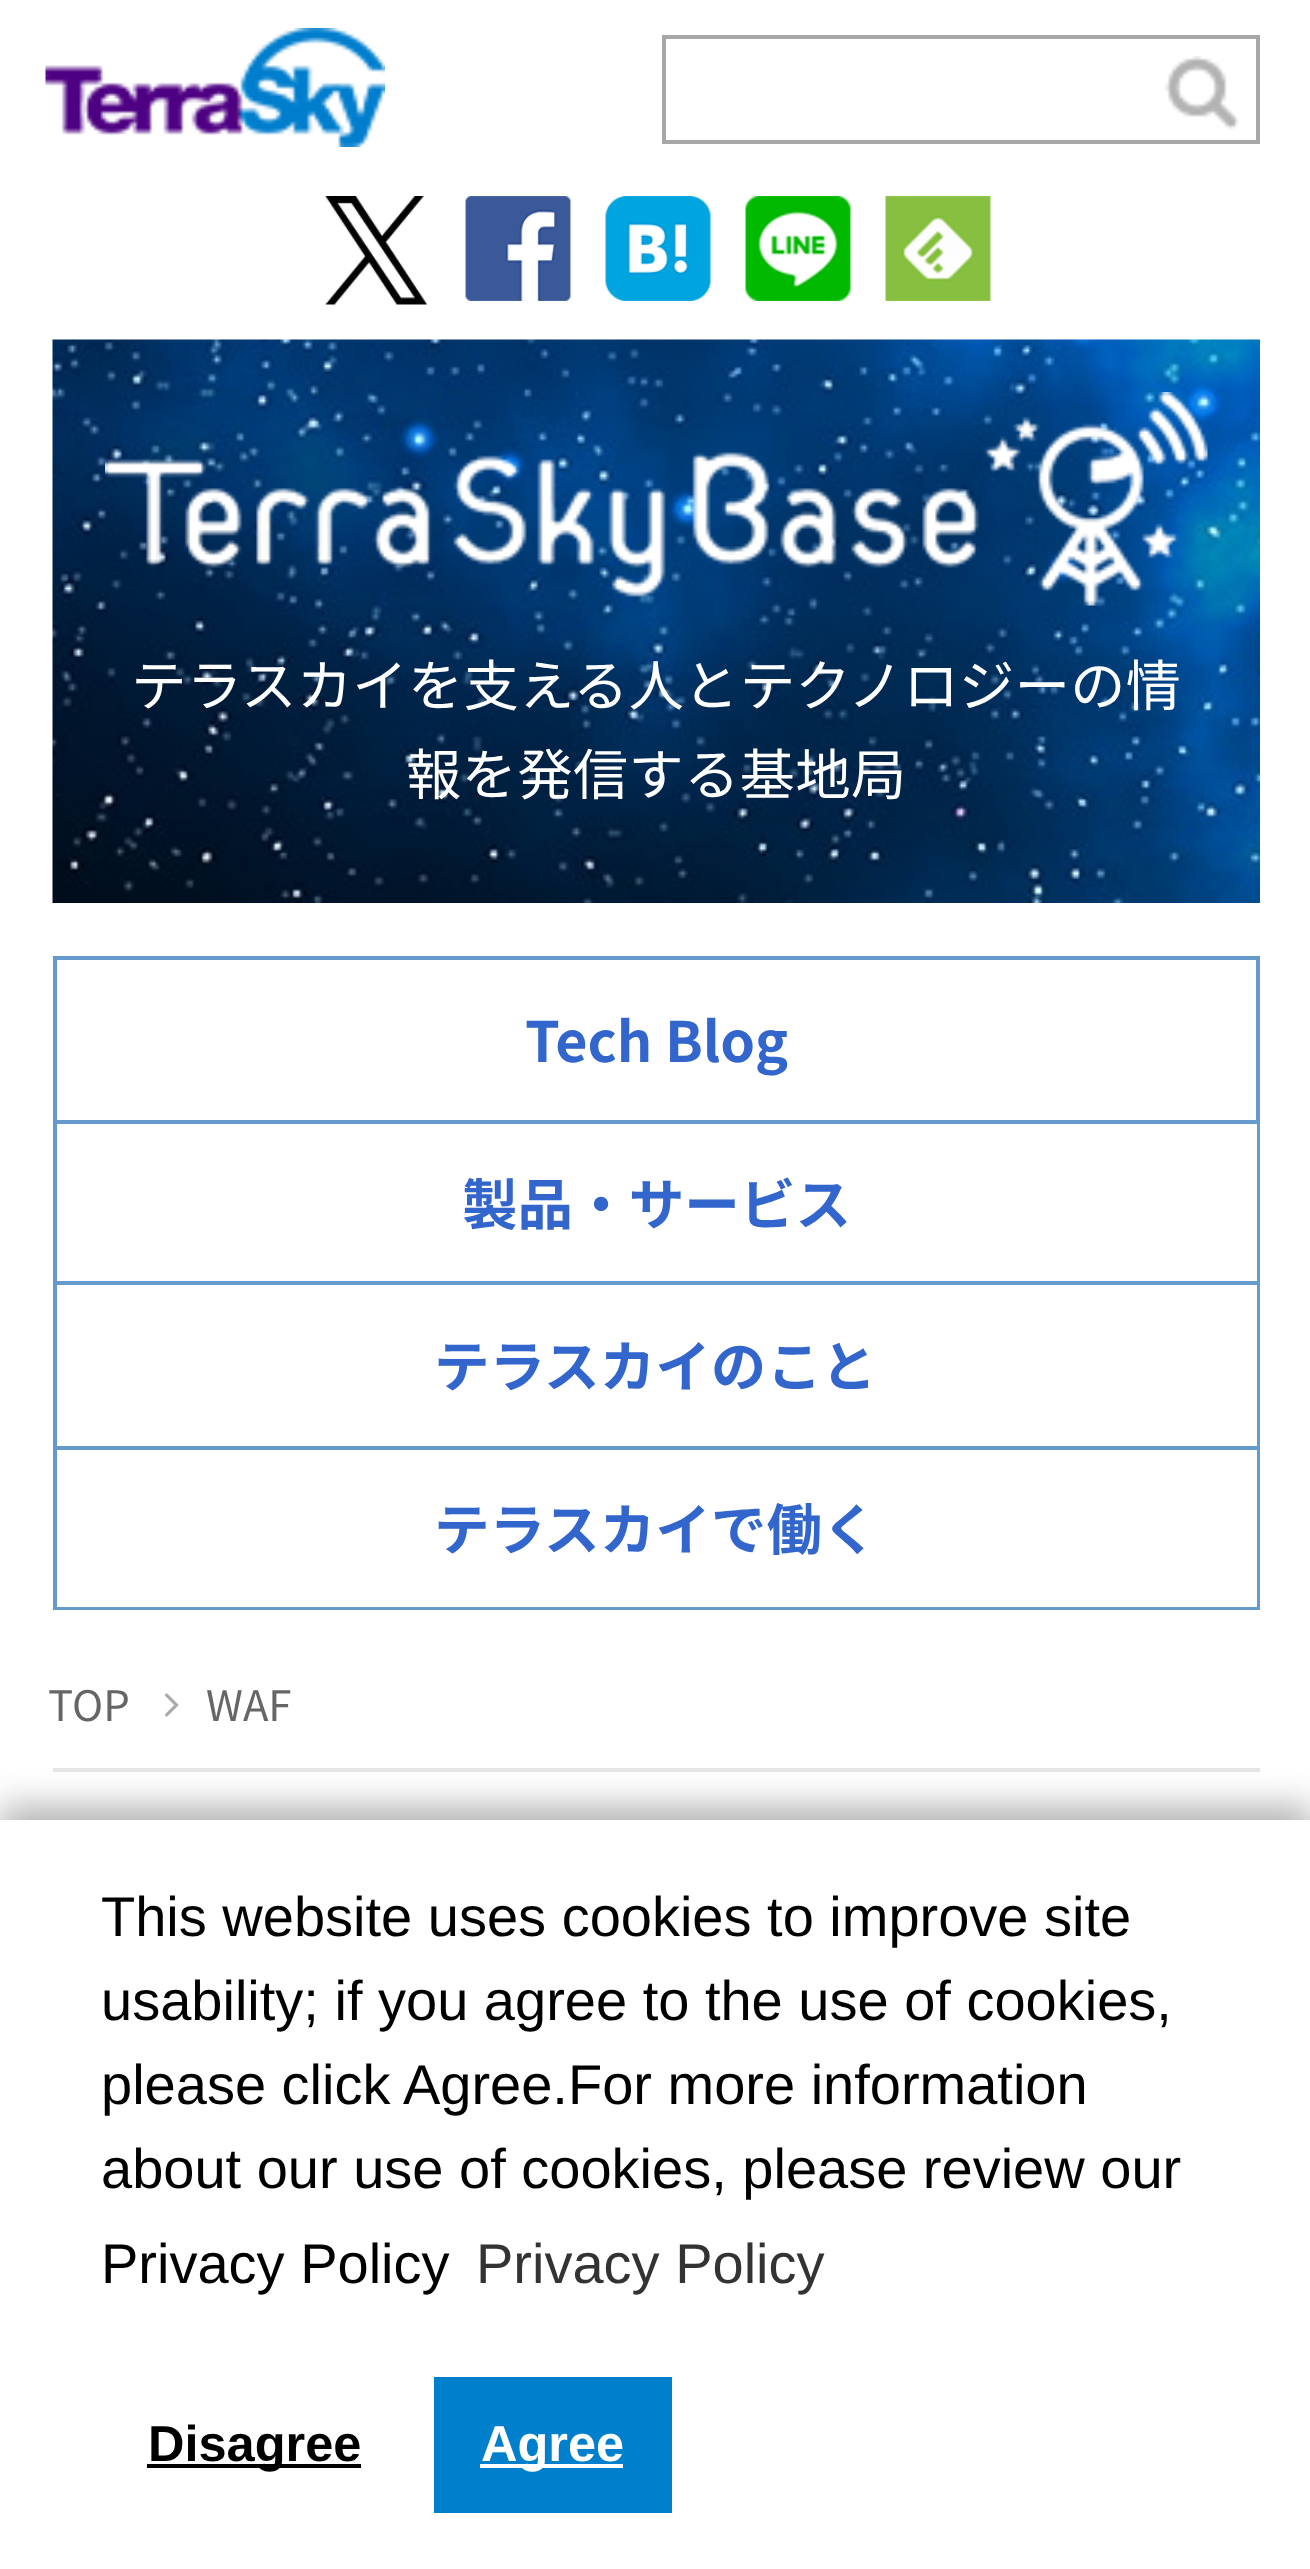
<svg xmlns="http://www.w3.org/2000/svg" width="1310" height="2569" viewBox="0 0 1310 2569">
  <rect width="100%" height="100%" fill="#fff"/>
  <image x="45" y="28" width="340" height="119" href="img/1.png"/>
  <path d="M664 37h594v105H664z" fill="none" stroke="#a7a7a7" stroke-width="4"/>
  <image x="1165" y="56" width="74" height="74" href="img/2.png"/>
  <image x="325" y="196" width="102" height="109" href="img/3.png"/>
  <image x="465" y="196" width="106" height="105" href="img/4.png"/>
  <image x="605" y="196" width="106" height="105" href="img/5.png"/>
  <image x="745" y="196" width="106" height="105" href="img/6.png"/>
  <image x="885" y="196" width="106" height="105" href="img/7.png"/>
  <image x="52" y="339" width="1208" height="564" href="img/8.png"/>
  <image x="105" y="392" width="1103" height="214" href="img/9.png"/>
  <path d="M55 958h1203v164H55z" fill="none" stroke="#69c" stroke-width="4"/>
  <path d="M1257 1124h3v325H1257z" fill="#69c"/>
  <path d="M53 1281h1207v4H53z" fill="#69c"/>
  <path d="M53 1124h4v161H53z" fill="#69c"/>
  <path d="M53 1446h1207v4H53z" fill="#69c"/>
  <path d="M53 1285h4v164H53z" fill="#69c"/>
  <path d="M1257 1449h3v161H1257z" fill="#69c"/>
  <path d="M53 1607h1207v3H53z" fill="#69c"/>
  <path d="M53 1449h4v161H53z" fill="#69c"/>
  <path d="M53 1768h1207v4H53z" fill="#e6e6e6"/>
  <image x="164" y="1693" width="15" height="24" href="img/10.png"/>
  <path d="M0 1806h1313v749H0z" fill="#0000004d" filter="blur(17.5px)"/>
  <path d="M0 1820h1310v749H0z" fill="#fff"/>
  <path d="M147 2464h214v4H147z" fill="#000"/>
  <path d="M434 2377h238v136H434z" fill="#0080cc"/>
  <path d="M480 2464h143v4H480z" fill="#fff"/>
  <g font-family="Noto Sans JP" font-size="55.6" fill="#fff">
    <text x="131" y="706">テラスカイを支える人とテクノロジーの情</text>
    <text x="406" y="795">報を発信する基地局</text>
  </g>
  <g font-family="Noto Sans JP" font-size="55.6" font-weight="bold" fill="#36c">
    <text x="525" y="1062">Tech Blog</text>
    <text x="462" y="1225">製品・サービス</text>
    <text x="434" y="1387">テラスカイのこと</text>
    <text x="434" y="1550">テラスカイで働く</text>
  </g>
  <g font-family="Noto Sans JP" font-size="42" fill="#666">
    <text x="48" y="1721">TOP</text>
    <text x="206" y="1721">WAF</text>
  </g>
  <g font-family="Liberation Sans" font-size="56" fill="#000">
    <text x="101" y="1936">This website uses cookies to improve site</text>
    <text x="101" y="2020">usability; if you agree to the use of cookies,</text>
    <text x="101" y="2104">please click Agree.For more information</text>
    <text x="101" y="2188">about our use of cookies, please review our</text>
    <text x="101" y="2283">Privacy Policy</text>
  </g>
  <text x="476" y="2283" font-family="Liberation Sans" font-size="56" fill="#333">Privacy Policy</text>
  <text x="148" y="2461" font-family="Liberation Sans" font-size="50.5" font-weight="bold" fill="#000">Disagree</text>
  <text x="481" y="2461" font-family="Liberation Sans" font-size="50.5" font-weight="bold" fill="#fff">Agree</text>
</svg>
